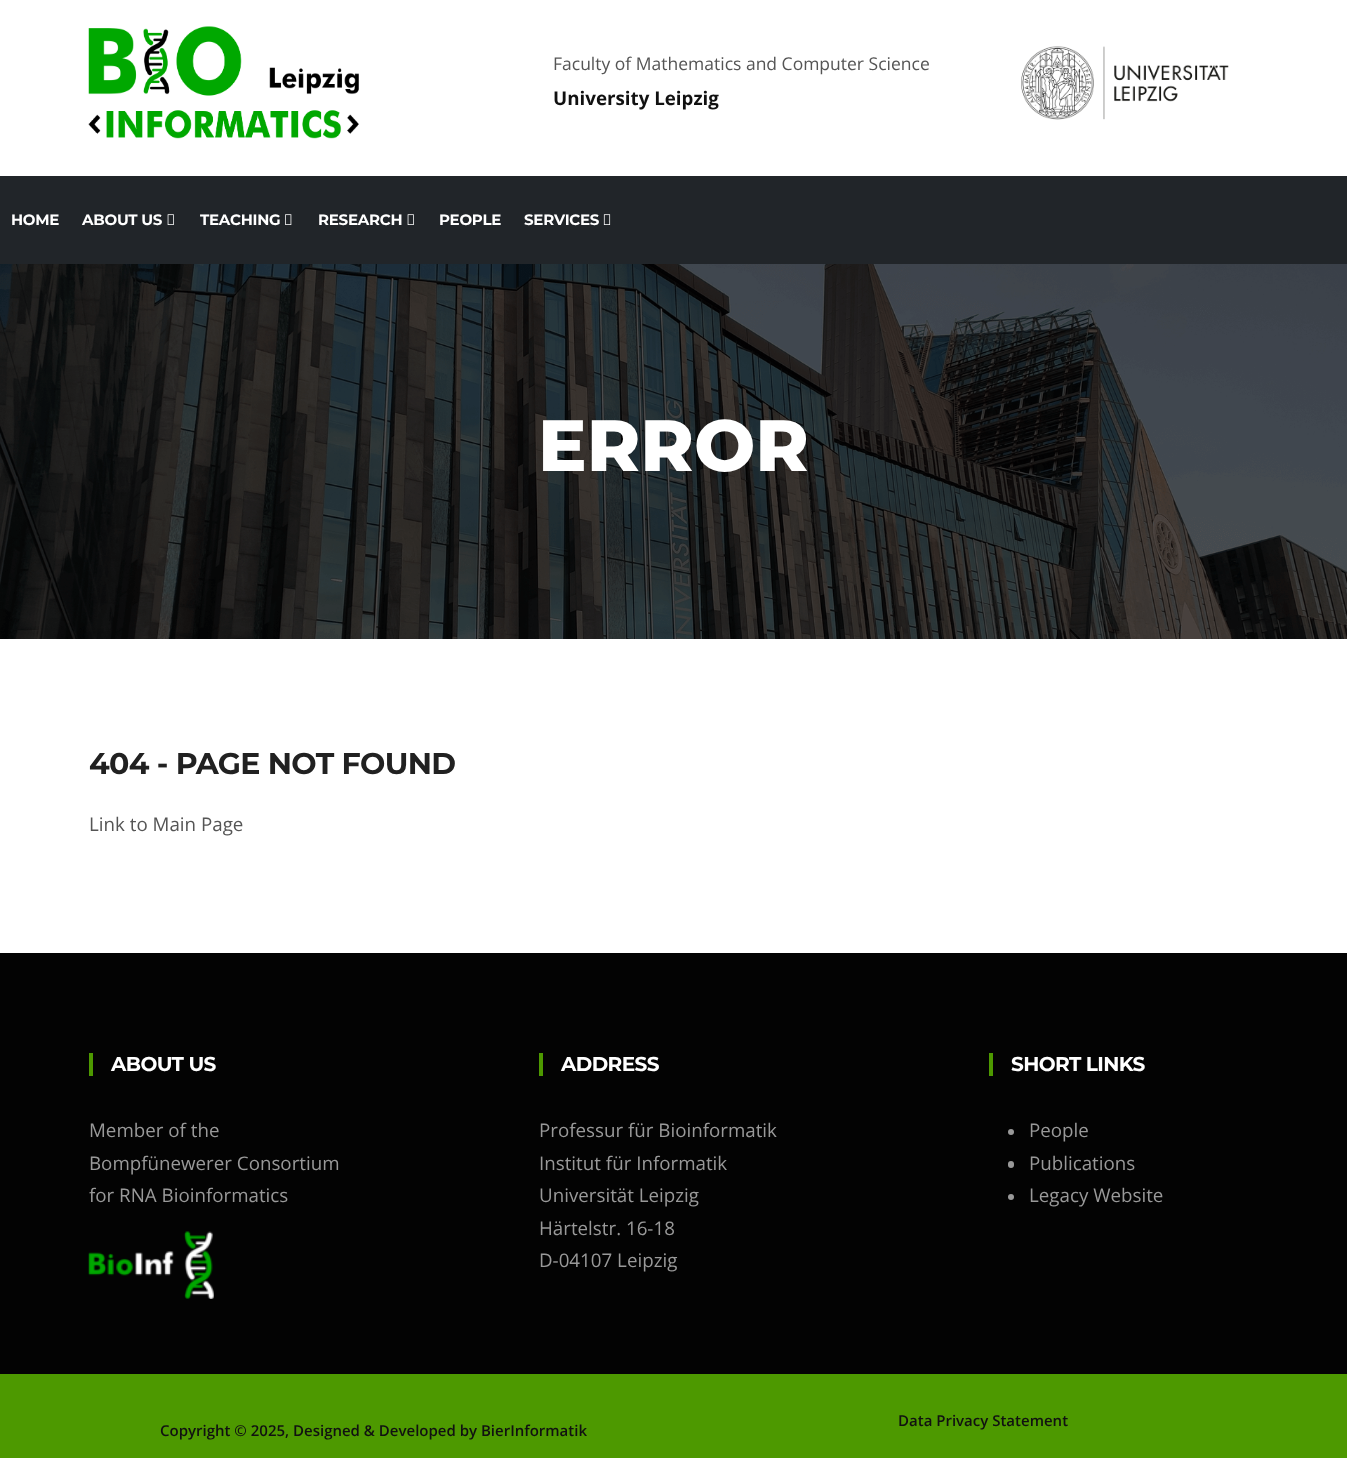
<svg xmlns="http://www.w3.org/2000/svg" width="1347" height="1458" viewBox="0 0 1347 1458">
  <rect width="100%" height="100%" fill="#fff"/>
  <image x="88" y="26" width="271" height="113" href="img/1.png"/>
  <image x="1021" y="46" width="208" height="74" href="img/2.png"/>
  <path d="M0 176h1347v88H0z" fill="#212529"/>
  <image x="167" y="214" width="7" height="11" href="img/3.png"/>
  <image x="285" y="214" width="7" height="11" href="img/4.png"/>
  <image x="407" y="214" width="7" height="11" href="img/3.png"/>
  <image x="603" y="214" width="8" height="11" href="img/5.png"/>
  <image x="0" y="264" width="1347" height="375" href="img/6.png"/>
  <path d="M0 953h1347v421H0z" fill="#030303"/>
  <path d="M89 1053h4v23H89z" fill="#4d9900"/>
  <image x="88" y="1231" width="126" height="68" href="img/7.png"/>
  <path d="M539 1053h4v23H539z" fill="#4d9900"/>
  <path d="M989 1053h4v23H989z" fill="#4d9900"/>
  <circle cx="1011" cy="1132" r="3" fill="#999"/>
  <rect x="1008" y="1161" width="6" height="7" rx="3" fill="#999"/>
  <circle cx="1011" cy="1197" r="3" fill="#999"/>
  <path d="M0 1374h1347v84H0z" fill="#4d9900"/>
  <text x="553" y="70" font-family="Open Sans" font-size="17.5" fill="#555">Faculty of Mathematics and Computer Science</text>
  <text x="553" y="105" font-family="Open Sans" font-size="18.75" font-weight="bold" fill="#111">University Leipzig</text>
  <g font-family="Montserrat" font-size="15" font-weight="100" letter-spacing="-0.25" fill="#fff">
    <text x="11" y="225">HOME</text>
    <text x="82" y="225">ABOUT US</text>
    <text x="200" y="225">TEACHING</text>
    <text x="318" y="225">RESEARCH</text>
    <text x="439" y="225">PEOPLE</text>
    <text x="524" y="225">SERVICES</text>
  </g>
  <text x="538" y="471" font-family="'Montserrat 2'" font-size="72.5" font-weight="100" fill="#fff">ERROR</text>
  <text x="89" y="774" font-family="Montserrat" font-size="30" font-weight="100" letter-spacing="-0.6" fill="#212121">404 - PAGE NOT FOUND</text>
  <text x="89" y="831" font-family="Open Sans" font-size="18.75" fill="#555">Link to Main Page</text>
  <text x="111" y="1071" font-family="Montserrat" font-size="20" font-weight="100" letter-spacing="-0.6" fill="#fff">ABOUT US</text>
  <g font-family="Open Sans" font-size="18.75" fill="#999">
    <text x="89" y="1137">Member of the</text>
    <text x="89" y="1170">Bompfünewerer Consortium</text>
    <text x="89" y="1202">for RNA Bioinformatics</text>
  </g>
  <text x="561" y="1071" font-family="Montserrat" font-size="20" font-weight="100" letter-spacing="-0.6" fill="#fff">ADDRESS</text>
  <g font-family="Open Sans" font-size="18.75" fill="#999">
    <text x="539" y="1137">Professur für Bioinformatik</text>
    <text x="539" y="1170">Institut für Informatik</text>
    <text x="539" y="1202">Universität Leipzig</text>
    <text x="539" y="1235">Härtelstr. 16-18</text>
    <text x="539" y="1267">D-04107 Leipzig</text>
  </g>
  <text x="1011" y="1071" font-family="Montserrat" font-size="20" font-weight="100" letter-spacing="-0.6" fill="#fff">SHORT LINKS</text>
  <g font-family="Open Sans" font-size="18.75" fill="#999">
    <text x="1029" y="1137">People</text>
    <text x="1029" y="1170">Publications</text>
    <text x="1029" y="1202">Legacy Website</text>
  </g>
  <g font-family="Open Sans" font-size="15" font-weight="600" fill="#111">
    <text x="898" y="1426">Data Privacy Statement</text>
    <text x="160" y="1436">Copyright © 2025, Designed &amp; Developed by BierInformatik</text>
  </g>
</svg>
